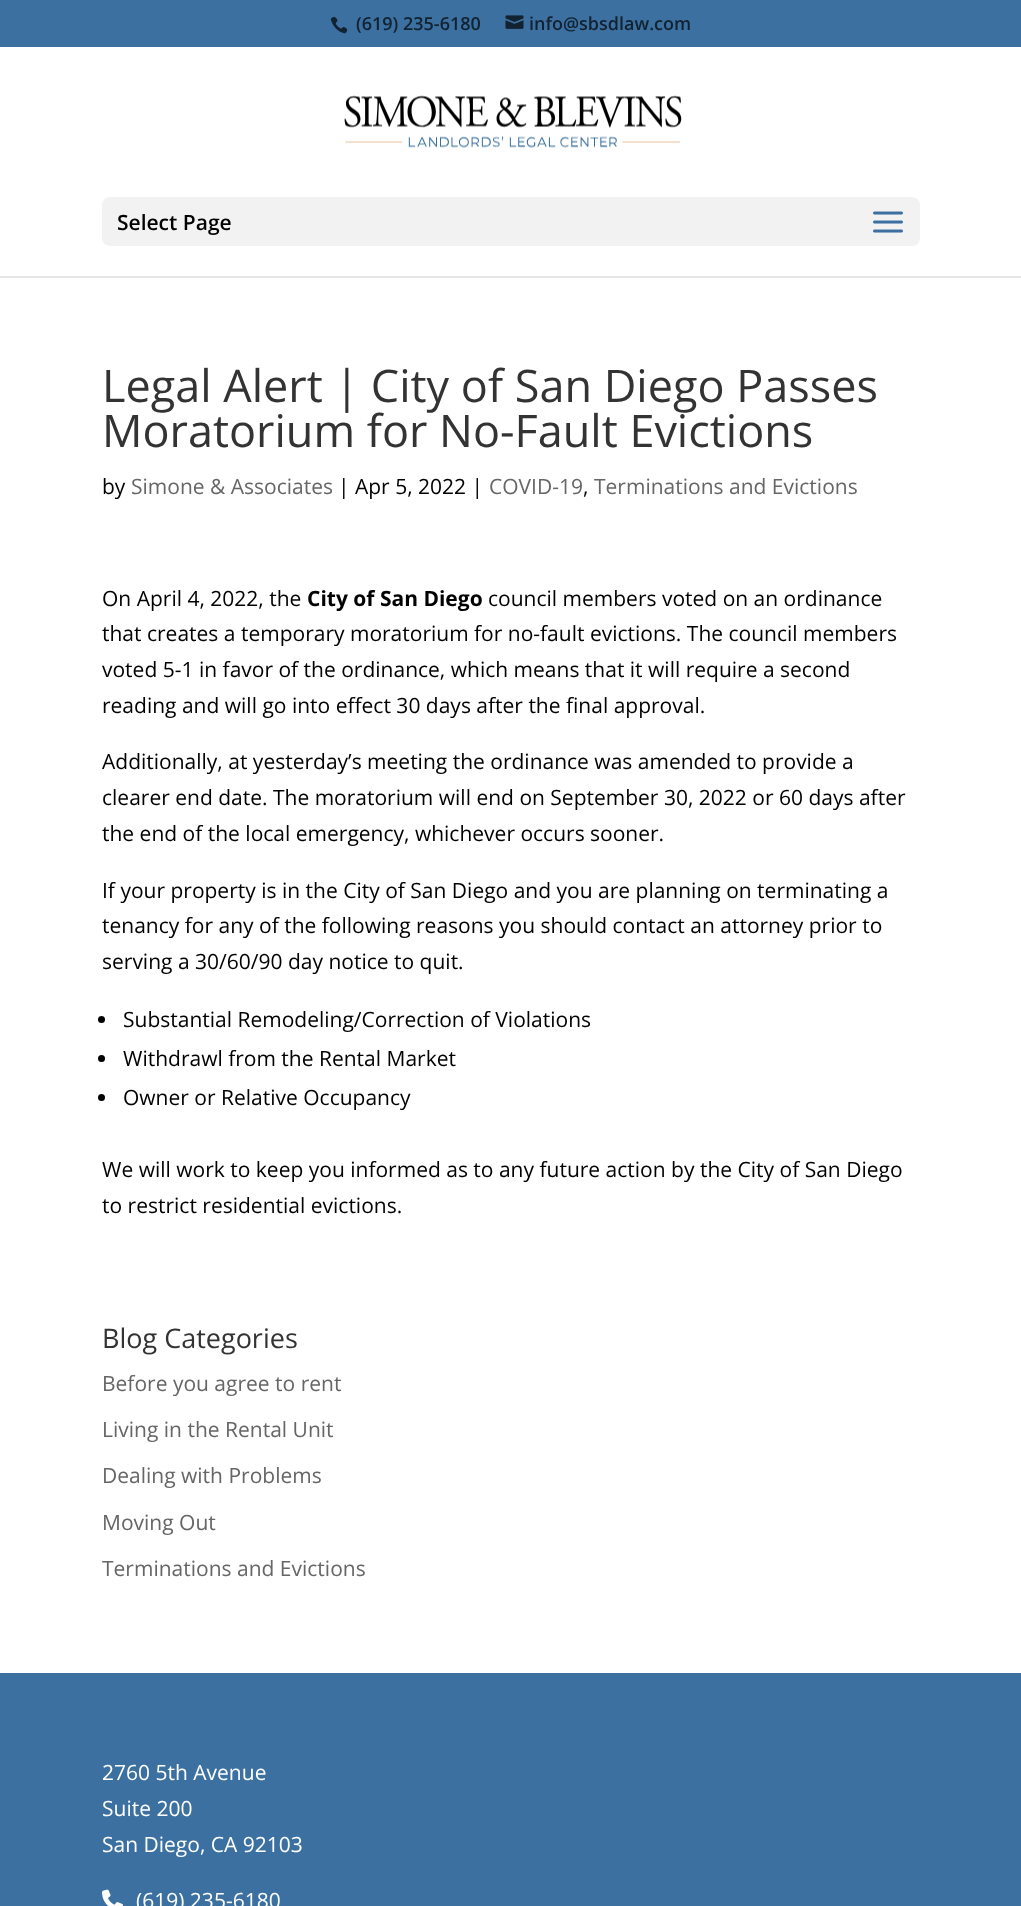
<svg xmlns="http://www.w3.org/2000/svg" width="1021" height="1906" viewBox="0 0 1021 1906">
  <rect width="100%" height="100%" fill="#fff"/>
  <path d="M0 0h1021v47H0z" fill="#3b70a1"/>
  <image x="330" y="16" width="18" height="18" href="img/1.png"/>
  <image x="505" y="15" width="19" height="14" href="img/2.png"/>
  <path d="M0 276V278H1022V48V276Z" fill="#e6e6e6"/>
  <image x="344" y="95" width="338" height="53" href="img/3.png"/>
  <rect x="102" y="197" width="818" height="49" rx="8" fill="#f2f2f2"/>
  <image x="873" y="211" width="30" height="22" href="img/4.png"/>
  <circle cx="101.5" cy="1019.5" r="3.5" fill="#000"/>
  <circle cx="101.5" cy="1058.5" r="3.5" fill="#000"/>
  <circle cx="101.5" cy="1097.5" r="3.5" fill="#000"/>
  <path d="M0 1673h1021v233H0z" fill="#3b70a1"/>
  <image x="102" y="1889" width="21" height="17" href="img/5.png"/>
  <g font-family="Open Sans" font-size="18" font-weight="600" fill="#122230">
    <text x="356" y="30">(619) 235-6180</text>
    <text x="529" y="30">info@sbsdlaw.com</text>
  </g>
  <text x="117" y="230" font-family="Open Sans" font-size="21" font-weight="600" fill="#000">Select Page</text>
  <g font-family="Open Sans" font-size="45" fill="#333">
    <text x="102" y="402">Legal Alert | City of San Diego Passes</text>
    <text x="102" y="447">Moratorium for No-Fault Evictions</text>
  </g>
  <text x="102" y="494" font-family="Open Sans" font-size="21" fill="#000">by</text>
  <text x="131" y="494" font-family="Open Sans" font-size="21" fill="#666">Simone &amp; Associates</text>
  <text x="338" y="494" font-family="Open Sans" font-size="21" fill="#000">| Apr 5, 2022 |</text>
  <text x="489" y="494" font-family="Open Sans" font-size="21" fill="#666">COVID-19</text>
  <text x="583" y="494" font-family="Open Sans" font-size="21" fill="#000">,</text>
  <text x="594" y="494" font-family="Open Sans" font-size="21" fill="#666">Terminations and Evictions</text>
  <text x="102" y="606" font-family="Open Sans" font-size="21" fill="#000">On April 4, 2022, the</text>
  <text x="307" y="606" font-family="Open Sans" font-size="21" font-weight="bold" fill="#000">City of San Diego</text>
  <g font-family="Open Sans" font-size="21" fill="#000">
    <text x="488" y="606">council members voted on an ordinance</text>
    <text x="102" y="641">that creates a temporary moratorium for no-fault evictions. The council members</text>
    <text x="102" y="677">voted 5-1 in favor of the ordinance, which means that it will require a second</text>
    <text x="102" y="713">reading and will go into effect 30 days after the final approval.</text>
    <text x="102" y="769">Additionally, at yesterday’s meeting the ordinance was amended to provide a</text>
    <text x="102" y="805">clearer end date. The moratorium will end on September 30, 2022 or 60 days after</text>
    <text x="102" y="841">the end of the local emergency, whichever occurs sooner.</text>
    <text x="102" y="898">If your property is in the City of San Diego and you are planning on terminating a</text>
    <text x="102" y="933">tenancy for any of the following reasons you should contact an attorney prior to</text>
    <text x="102" y="969">serving a 30/60/90 day notice to quit.</text>
    <text x="123" y="1027">Substantial Remodeling/Correction of Violations</text>
    <text x="123" y="1066">Withdrawl from the Rental Market</text>
    <text x="123" y="1105">Owner or Relative Occupancy</text>
    <text x="102" y="1177">We will work to keep you informed as to any future action by the City of San Diego</text>
    <text x="102" y="1213">to restrict residential evictions.</text>
  </g>
  <text x="102" y="1348" font-family="Open Sans" font-size="27" fill="#333">Blog Categories</text>
  <g font-family="Open Sans" font-size="21" fill="#666">
    <text x="102" y="1391">Before you agree to rent</text>
    <text x="102" y="1437">Living in the Rental Unit</text>
    <text x="102" y="1483">Dealing with Problems</text>
    <text x="102" y="1530">Moving Out</text>
    <text x="102" y="1576">Terminations and Evictions</text>
  </g>
  <g font-family="Open Sans" font-size="21" fill="#fff">
    <text x="102" y="1780">2760 5th Avenue</text>
    <text x="102" y="1816">Suite 200</text>
    <text x="102" y="1852">San Diego, CA 92103</text>
    <text x="136" y="1908">(619) 235-6180</text>
  </g>
</svg>
